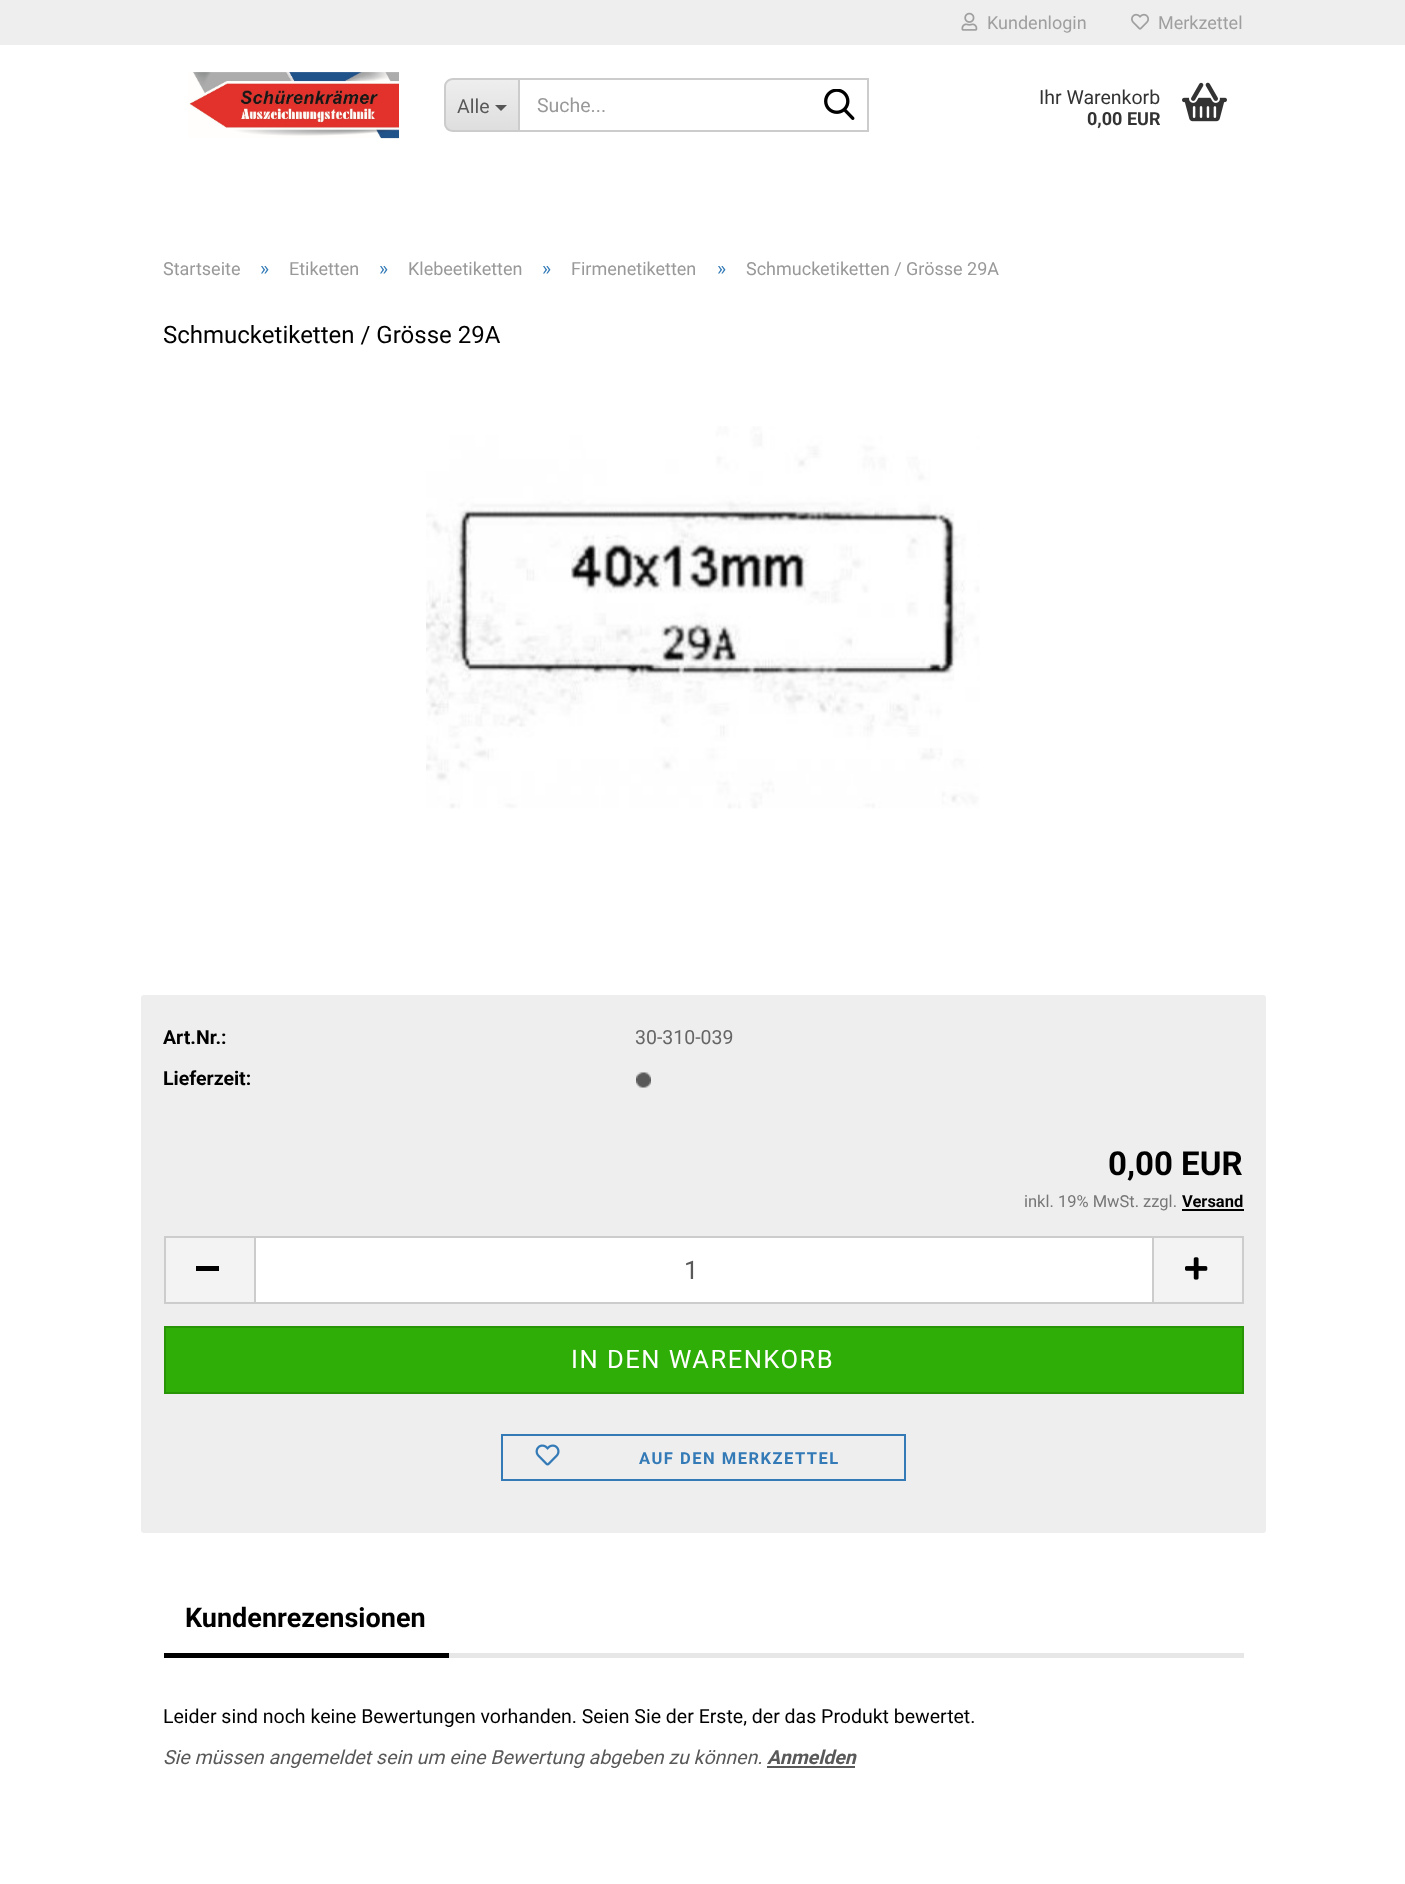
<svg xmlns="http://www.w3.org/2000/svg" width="1405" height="1884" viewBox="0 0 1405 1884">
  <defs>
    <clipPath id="clip1"><path d="M453 78H518V132H453C448 132 444 128 444 123V87C444 82 448 78 453 78Z"/></clipPath>
    <linearGradient id="g1" gradientUnits="userSpaceOnUse" x1="482" y1="80" x2="482" y2="131"><stop offset="0" stop-color="#eee"/><stop offset="1" stop-color="#dedede"/></linearGradient>
  </defs>
  <rect width="100%" height="100%" fill="#fff"/>
  <path d="M0 0h1405v45H0z" fill="#eee"/>
  <image x="961" y="12" width="17" height="19" href="img/1.png"/>
  <image x="1131" y="13" width="18" height="17" href="img/2.png"/>
  <image x="188" y="72" width="211" height="67" href="img/3.png"/>
  <g clip-path="url(#clip1)">
    <path d="M444 80h74v51H444z" fill="url(#g1)"/>
  </g>
  <path d="M453 78H518V132H453C448 132 444 128 444 123V87C444 82 448 78 453 78ZM453 80H518V130H453C449 130 446 127 446 123V87C446 83 449 80 453 80Z" fill="#ccc" fill-rule="evenodd"/>
  <path d="M495 105H507L501 111Z" fill="#555"/>
  <path d="M519 79h349v52H519z" fill="none" stroke="#ccc" stroke-width="2"/>
  <image x="824" y="89" width="31" height="31" href="img/4.png"/>
  <image x="1182" y="82" width="45" height="40" href="img/5.png"/>
  <image x="426" y="426" width="554" height="383" href="img/6.png"/>
  <rect x="141" y="995" width="1125" height="538" rx="3" fill="#eee"/>
  <image x="636" y="1072" width="15" height="16" href="img/7.png"/>
  <path d="M1182 1209h62v2H1182z" fill="#000"/>
  <path d="M166 1238h88v64H166z" fill="#f3f3f3"/>
  <path d="M164 1236h90v2H164z" fill="#ccc"/>
  <path d="M164 1302h90v2H164z" fill="#ccc"/>
  <path d="M164 1236h2v68H164z" fill="#ccc"/>
  <path d="M196 1266h23v5H196z" fill="#000"/>
  <path d="M255 1237h898v66H255z" fill="#fff" stroke="#ccc" stroke-width="2"/>
  <path d="M1154 1238h88v64H1154z" fill="#f3f3f3"/>
  <path d="M1154 1236h90v2H1154z" fill="#ccc"/>
  <path d="M1242 1236h2v68H1242z" fill="#ccc"/>
  <path d="M1154 1302h90v2H1154z" fill="#ccc"/>
  <image x="1185" y="1257" width="23" height="23" href="img/8.png"/>
  <path d="M165 1327h1078v66H165z" fill="#2eae06" stroke="#279505" stroke-width="2"/>
  <path d="M502 1435h403v45H502z" fill="none" stroke="#337ab7" stroke-width="2"/>
  <image x="535" y="1444" width="25" height="22" href="img/9.png"/>
  <path d="M449 1653h795v5H449z" fill="#e7e7e7"/>
  <path d="M164 1653h285v5H164z" fill="#000"/>
  <path d="M767 1766h88v2H767z" fill="#595959"/>
  <g font-family="Roboto" font-size="18" fill="#9f9f9f">
    <text x="987" y="29">Kundenlogin</text>
    <text x="1158" y="29">Merkzettel</text>
  </g>
  <text x="457" y="113" font-family="Roboto" font-size="19.5" fill="#595959">Alle</text>
  <text x="537" y="112" font-family="Roboto" font-size="19.5" fill="#999">Suche...</text>
  <text x="1039" y="104" font-family="Roboto" font-size="19.5" fill="#333">Ihr Warenkorb</text>
  <text x="1087" y="125" font-family="Roboto" font-size="18" font-weight="bold" fill="#333">0,00 EUR</text>
  <text x="163" y="275" font-family="Roboto" font-size="18" fill="#999">Startseite</text>
  <text x="260" y="275" font-family="Roboto" font-size="19.5" fill="#337ab7">»</text>
  <text x="289" y="275" font-family="Roboto" font-size="18" fill="#999">Etiketten</text>
  <text x="379" y="275" font-family="Roboto" font-size="19.5" fill="#337ab7">»</text>
  <text x="408" y="275" font-family="Roboto" font-size="18" fill="#999">Klebeetiketten</text>
  <text x="542" y="275" font-family="Roboto" font-size="19.5" fill="#337ab7">»</text>
  <text x="571" y="275" font-family="Roboto" font-size="18" fill="#999">Firmenetiketten</text>
  <text x="717" y="275" font-family="Roboto" font-size="19.5" fill="#337ab7">»</text>
  <text x="746" y="275" font-family="Roboto" font-size="18" fill="#999">Schmucketiketten / Grösse 29A</text>
  <text x="163" y="343" font-family="Roboto" font-size="24" fill="#000">Schmucketiketten / Grösse 29A</text>
  <text x="163" y="1044" font-family="Roboto" font-size="19.5" font-weight="bold" fill="#000">Art.Nr.:</text>
  <text x="635" y="1044" font-family="Roboto" font-size="19.5" fill="#666">30-310-039</text>
  <text x="163" y="1085" font-family="Roboto" font-size="19.5" font-weight="bold" fill="#000">Lieferzeit:</text>
  <text x="1108" y="1175" font-family="Roboto" font-size="33" font-weight="bold" fill="#000">0,00 EUR</text>
  <text x="1024" y="1207" font-family="Roboto" font-size="16.5" fill="#777">inkl. 19% MwSt. zzgl.</text>
  <text x="1182" y="1207" font-family="Roboto" font-size="16.5" font-weight="bold" fill="#000">Versand</text>
  <text x="684" y="1279" font-family="Roboto" font-size="25.5" fill="#595959">1</text>
  <text x="571" y="1368" font-family="Roboto" font-size="25.5" letter-spacing="1.5" fill="#fff">IN DEN WARENKORB</text>
  <text x="639" y="1464" font-family="Roboto" font-size="16.5" font-weight="bold" letter-spacing="1.5" fill="#337ab7">AUF DEN MERKZETTEL</text>
  <text x="185" y="1627" font-family="Roboto" font-size="27" font-weight="bold" fill="#000">Kundenrezensionen</text>
  <text x="163" y="1723" font-family="Roboto" font-size="19.5" fill="#000">Leider sind noch keine Bewertungen vorhanden. Seien Sie der Erste, der das Produkt bewertet.</text>
  <text x="163" y="1764" font-family="Roboto" font-size="19.5" font-style="italic" fill="#595959">Sie müssen angemeldet sein um eine Bewertung abgeben zu können.</text>
  <text x="767" y="1764" font-family="Roboto" font-size="19.5" font-weight="bold" font-style="italic" fill="#595959">Anmelden</text>
</svg>
